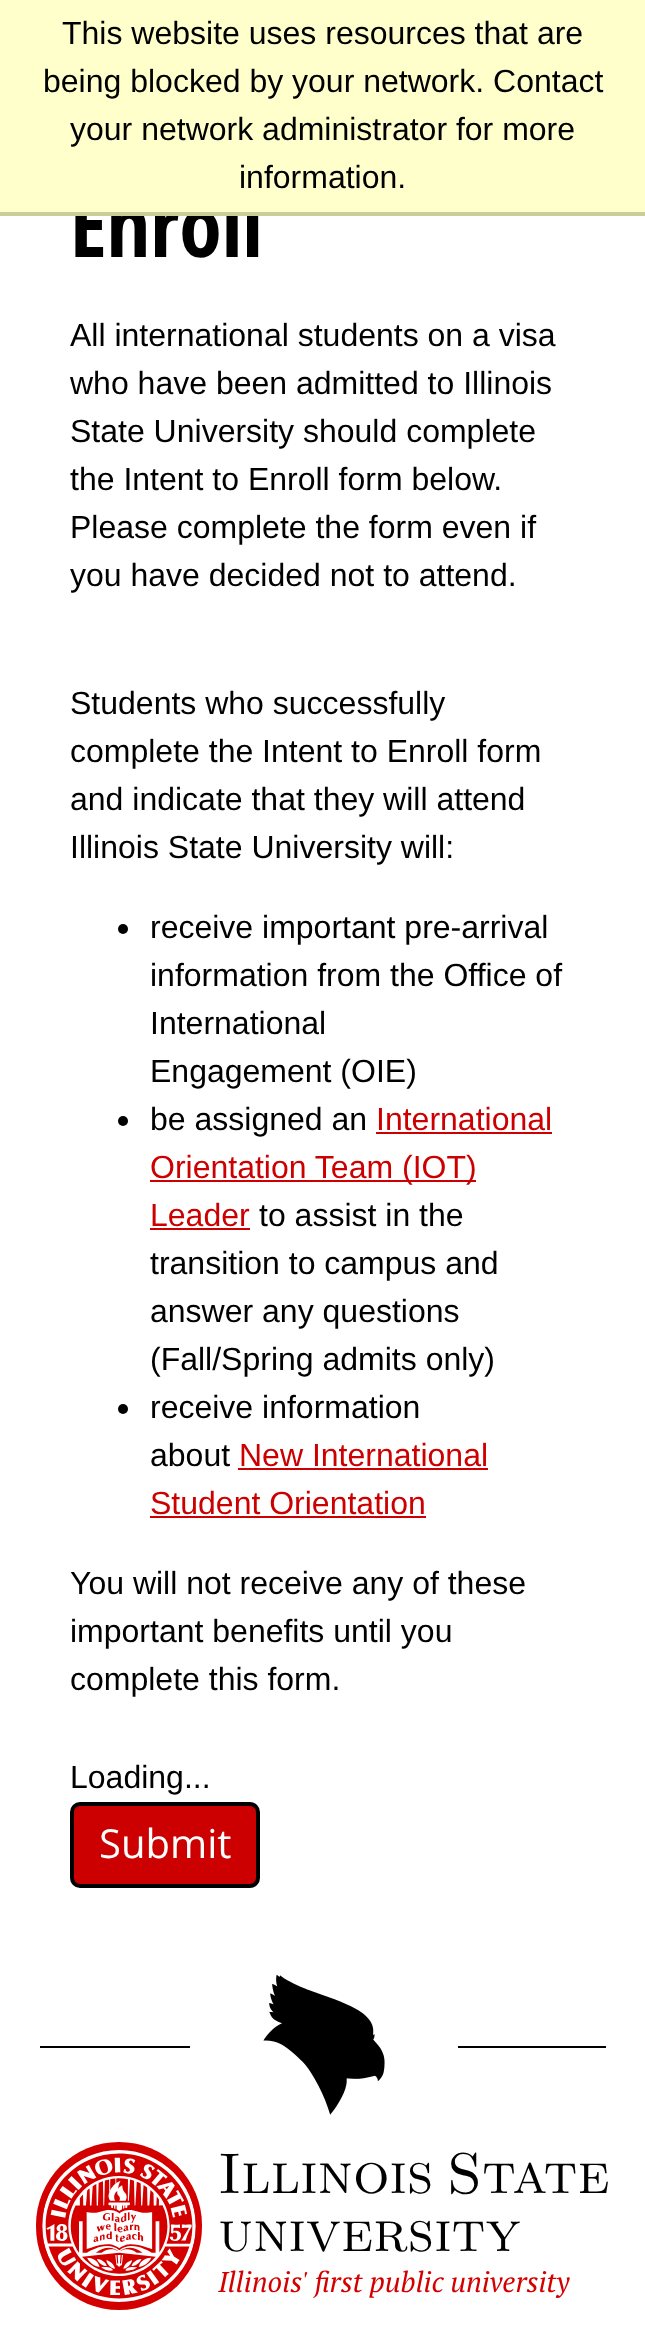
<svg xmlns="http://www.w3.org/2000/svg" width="645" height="2329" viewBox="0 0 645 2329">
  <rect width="100%" height="100%" fill="#fff"/>
  <circle cx="123" cy="929" r="5" fill="#000"/>
  <circle cx="123" cy="1121" r="5" fill="#000"/>
  <path d="M376 1132h176v2H376z" fill="#c00"/>
  <path d="M150 1180h326v2H150z" fill="#c00"/>
  <path d="M150 1228h100v2H150z" fill="#c00"/>
  <circle cx="123" cy="1409" r="5" fill="#000"/>
  <path d="M238 1468h250v2H238z" fill="#c00"/>
  <path d="M150 1516h276v2H150z" fill="#c00"/>
  <rect x="72" y="1804" width="186" height="82" rx="8" fill="#c00" stroke="#000" stroke-width="4"/>
  <path d="M40 2046h566v2H40z" fill="#000"/>
  <path d="M190 2046h268v2H190z" fill="#fff"/>
  <image x="263" y="1974" width="122" height="141" href="img/1.png"/>
  <rect x="36" y="2142" width="166" height="168" rx="83" fill="#d40000"/>
  <image x="42" y="2150" width="154" height="152" href="img/2.png"/>
  <text x="70" y="257" font-family="Open Sans Condensed" font-size="86" font-weight="bold" fill="#000">Enroll</text>
  <path d="M0 0h645v212H0z" fill="#ffc"/>
  <g font-family="Liberation Sans" font-size="32" fill="#000">
    <text x="239" y="188">information.</text>
    <text x="70" y="140">your network administrator for more</text>
    <text x="43" y="92">being blocked by your network. Contact</text>
    <text x="62" y="44">This website uses resources that are</text>
  </g>
  <path d="M0 212h645v4H0z" fill="#cc9"/>
  <g font-family="Liberation Sans" font-size="32" fill="#000">
    <text x="70" y="346">All international students on a visa</text>
    <text x="70" y="394">who have been admitted to Illinois</text>
    <text x="70" y="442">State University should complete</text>
    <text x="70" y="490">the Intent to Enroll form below.</text>
    <text x="70" y="538">Please complete the form even if</text>
    <text x="70" y="586">you have decided not to attend.</text>
    <text x="70" y="714">Students who successfully</text>
    <text x="70" y="762">complete the Intent to Enroll form</text>
    <text x="70" y="810">and indicate that they will attend</text>
    <text x="70" y="858">Illinois State University will:</text>
    <text x="150" y="938">receive important pre-arrival</text>
    <text x="150" y="986">information from the Office of</text>
    <text x="150" y="1034">International</text>
    <text x="150" y="1082">Engagement (OIE)</text>
    <text x="150" y="1130">be assigned an</text>
  </g>
  <g font-family="Liberation Sans" font-size="32" fill="#c00">
    <text x="376" y="1130">International</text>
    <text x="150" y="1178">Orientation Team (IOT)</text>
    <text x="150" y="1226">Leader</text>
  </g>
  <g font-family="Liberation Sans" font-size="32" fill="#000">
    <text x="259" y="1226">to assist in the</text>
    <text x="150" y="1274">transition to campus and</text>
    <text x="150" y="1322">answer any questions</text>
    <text x="150" y="1370">(Fall/Spring admits only)</text>
    <text x="150" y="1418">receive information</text>
    <text x="150" y="1466">about</text>
  </g>
  <g font-family="Liberation Sans" font-size="32" fill="#c00">
    <text x="239" y="1466">New International</text>
    <text x="150" y="1514">Student Orientation</text>
  </g>
  <g font-family="Liberation Sans" font-size="32" fill="#000">
    <text x="70" y="1594">You will not receive any of these</text>
    <text x="70" y="1642">important benefits until you</text>
    <text x="70" y="1690">complete this form.</text>
    <text x="70" y="1788">Loading...</text>
  </g>
  <text x="99" y="1858" font-family="Open Sans" font-size="40" fill="#fff">Submit</text>
  <g font-family="Latin Modern Roman Caps" font-size="57.5" fill="#000">
    <text x="218" y="2193" word-spacing="-8">Illinois State</text>
    <text x="218" y="2251">university</text>
  </g>
  <text x="218" y="2292" font-family="PT Serif" font-size="28.75" font-style="italic" fill="#d40000">Illinois' first public university</text>
</svg>
